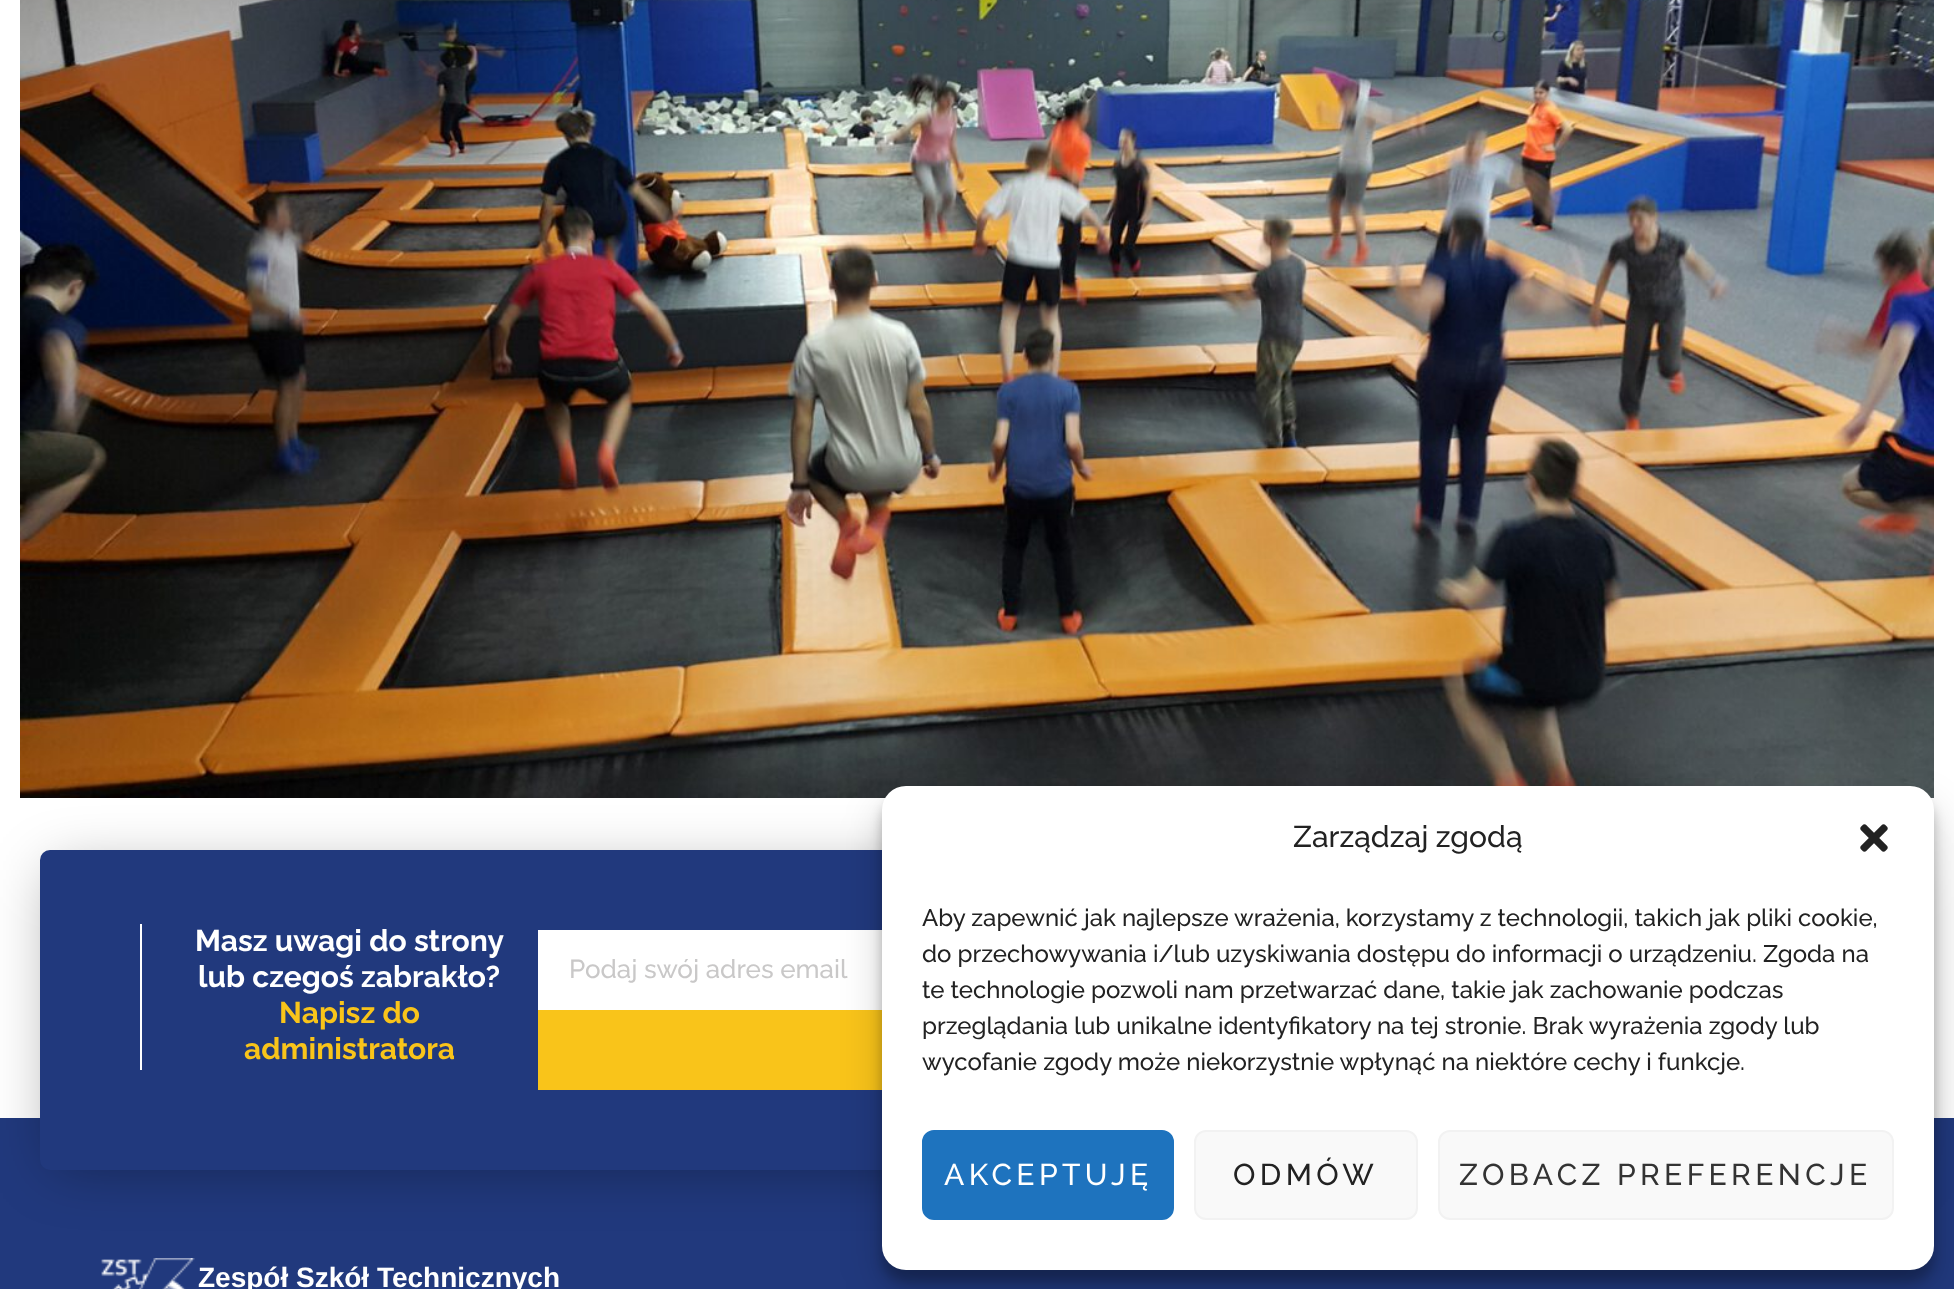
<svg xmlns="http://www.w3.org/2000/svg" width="1954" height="1289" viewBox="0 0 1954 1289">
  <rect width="100%" height="100%" fill="#fff"/>
  <image x="20" y="0" width="1914" height="798" href="img/1.png"/>
  <path d="M0 1118h1954v171H0z" fill="#21397d"/>
  <path d="M52 870h1850v296H52z" fill="#00000059" filter="blur(29px)"/>
  <rect x="40" y="850" width="1874" height="320" rx="10" fill="#21397d"/>
  <path d="M140 924h2v146H140z" fill="#fff"/>
  <path d="M538 930h344v80H538z" fill="#fff"/>
  <path d="M538 1010h344v80H538z" fill="#f9c41a"/>
  <image x="101" y="1258" width="94" height="31" href="img/2.png"/>
  <rect x="882" y="798" width="1052" height="484" rx="24" fill="#0000003b" filter="blur(6px)"/>
  <rect x="882" y="806" width="1052" height="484" rx="24" fill="#00000030" filter="blur(20px)"/>
  <rect x="882" y="786" width="1052" height="484" rx="24" fill="#fff"/>
  <image x="1860" y="824" width="28" height="28" href="img/3.png"/>
  <rect x="923" y="1131" width="250" height="88" rx="11" fill="#1e73be" stroke="#1e73be" stroke-width="2"/>
  <rect x="1195" y="1131" width="222" height="88" rx="11" fill="#f9f9f9" stroke="#f2f2f2" stroke-width="2"/>
  <rect x="1439" y="1131" width="454" height="88" rx="11" fill="#f9f9f9" stroke="#f2f2f2" stroke-width="2"/>
  <g font-family="Raleway" font-size="30" font-weight="bold" fill="#fff">
    <text x="195" y="951">Masz uwagi do strony</text>
    <text x="198" y="987">lub czegoś zabrakło?</text>
  </g>
  <g font-family="Raleway" font-size="30" font-weight="bold" fill="#f9c41a">
    <text x="279" y="1023">Napisz do</text>
    <text x="244" y="1059">administratora</text>
  </g>
  <text x="569" y="978" font-family="Raleway" font-size="26" font-weight="500" fill="#c9c8c8">Podaj swój adres email</text>
  <text x="198" y="1287" font-family="Liberation Sans" font-size="28" font-weight="bold" fill="#fff">Zespół Szkół Technicznych</text>
  <text x="1293" y="847" font-family="Raleway" font-size="30" font-weight="500" fill="#222">Zarządzaj zgodą</text>
  <g font-family="Raleway" font-size="24" font-weight="500" fill="#222">
    <text x="922" y="926">Aby zapewnić jak najlepsze wrażenia, korzystamy z technologii, takich jak pliki cookie,</text>
    <text x="922" y="962">do przechowywania i/lub uzyskiwania dostępu do informacji o urządzeniu. Zgoda na</text>
    <text x="922" y="998">te technologie pozwoli nam przetwarzać dane, takie jak zachowanie podczas</text>
    <text x="922" y="1034">przeglądania lub unikalne identyfikatory na tej stronie. Brak wyrażenia zgody lub</text>
    <text x="922" y="1070">wycofanie zgody może niekorzystnie wpłynąć na niektóre cechy i funkcje.</text>
  </g>
  <text x="944" y="1185" font-family="Raleway" font-size="30" font-weight="500" letter-spacing="4.4" fill="#fff">AKCEPTUJĘ</text>
  <text x="1233" y="1185" font-family="Raleway" font-size="30" font-weight="500" letter-spacing="4.4" fill="#222">ODMÓW</text>
  <text x="1459" y="1185" font-family="Raleway" font-size="30" font-weight="500" letter-spacing="4.4" fill="#333">ZOBACZ PREFERENCJE</text>
</svg>
